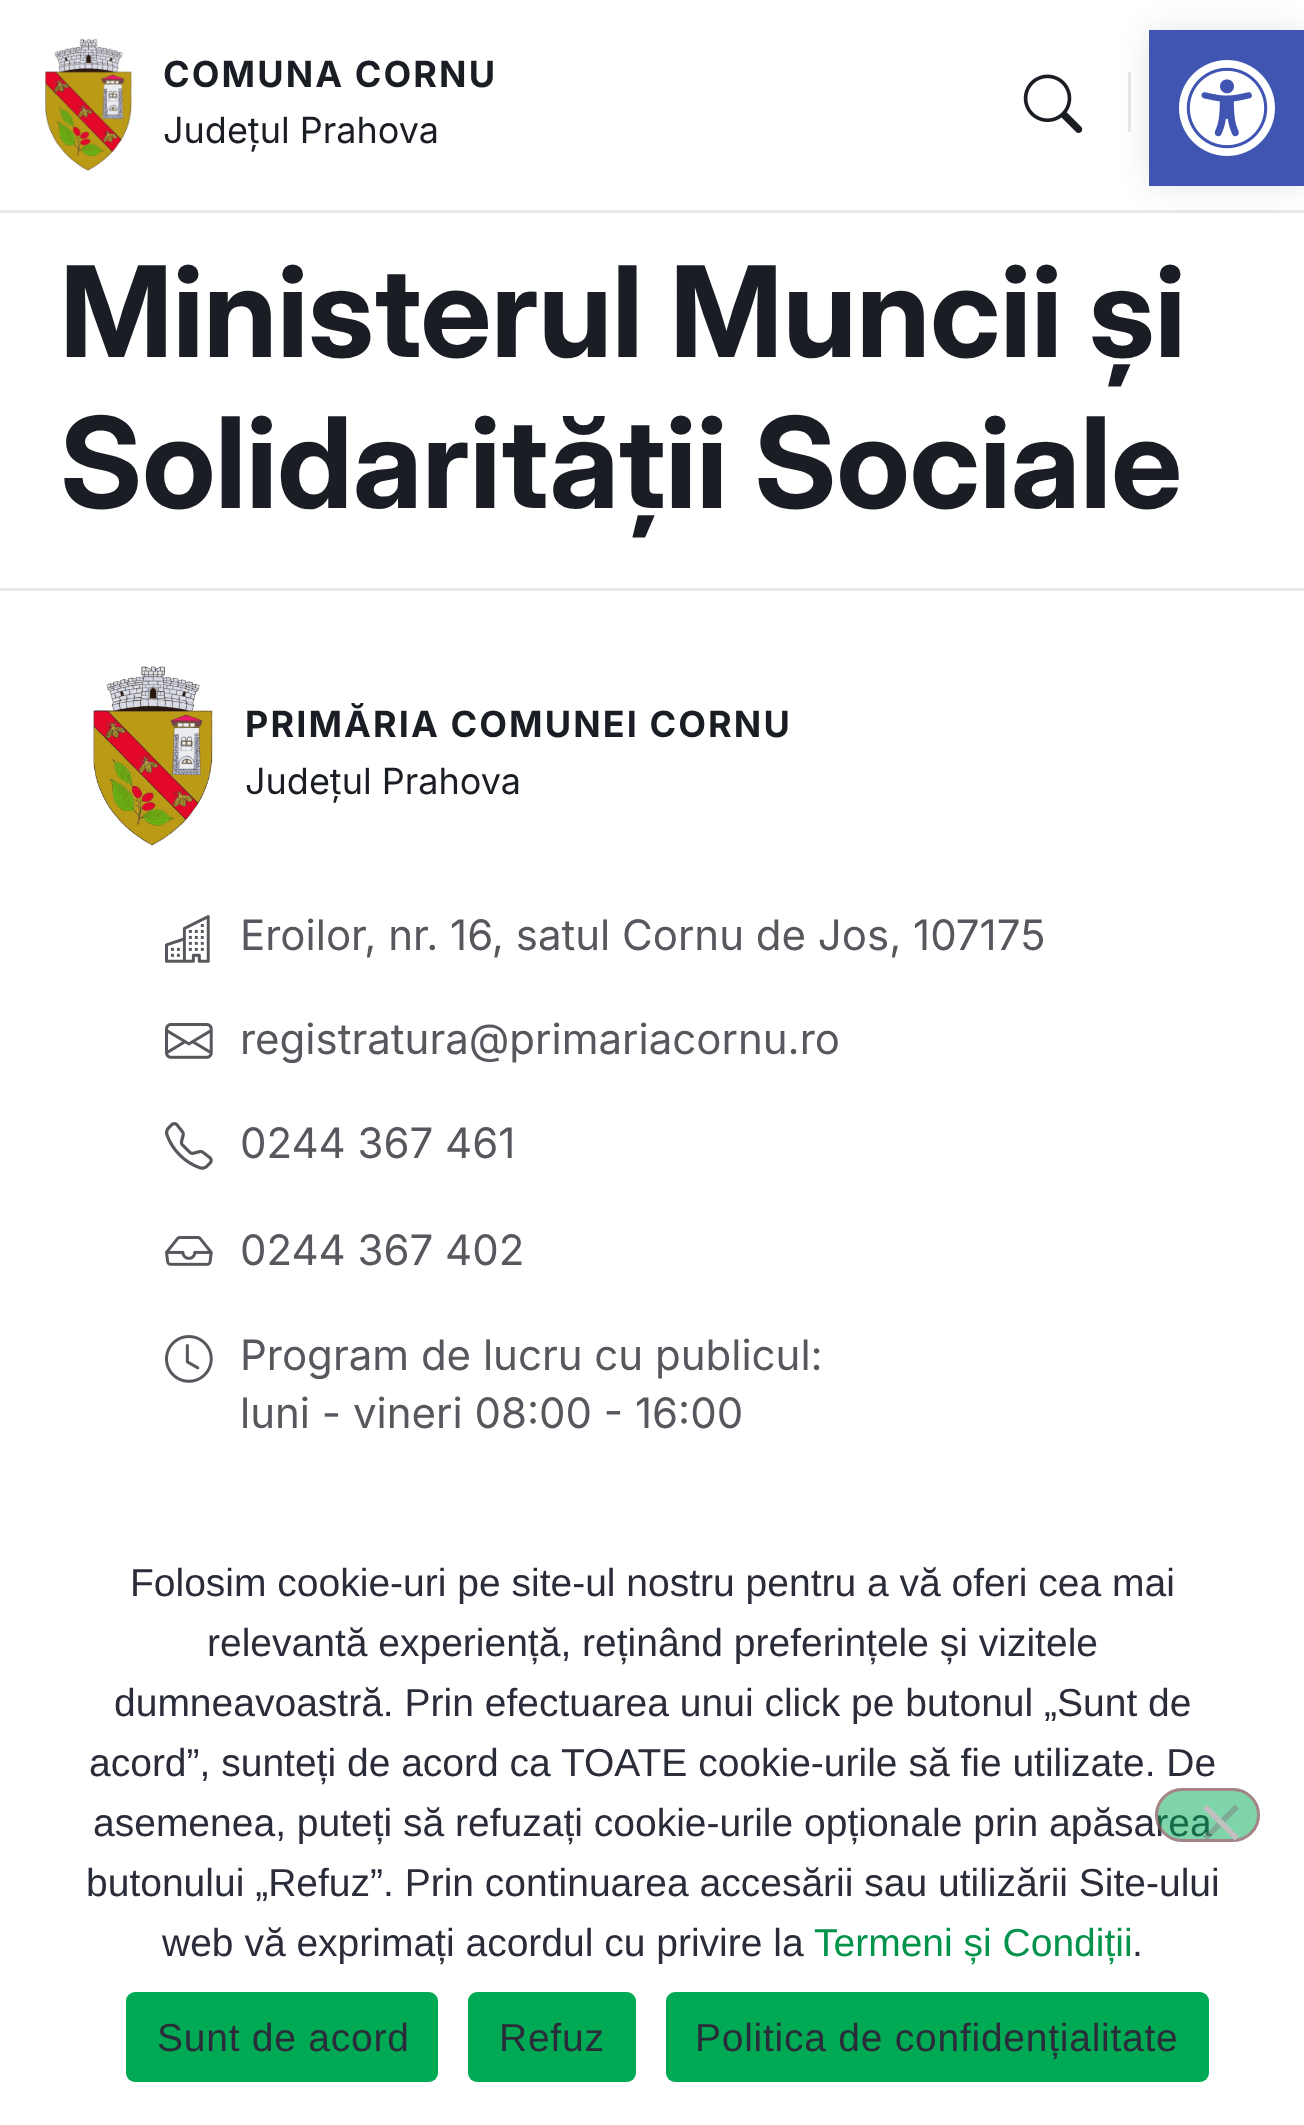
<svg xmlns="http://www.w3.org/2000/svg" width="1304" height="2125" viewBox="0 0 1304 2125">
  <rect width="100%" height="100%" fill="#fff"/>
  <path d="M0 210h1304v3H0z" fill="#e9e9ea"/>
  <image x="45" y="39" width="87" height="132" href="img/1.png"/>
  <image x="1023" y="74" width="60" height="59" href="img/2.png"/>
  <path d="M1128 72h3v60H1128z" fill="#e9e9ea"/>
  <path d="M1149 30h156v156H1149z" fill="#0000001a" filter="blur(15px)"/>
  <path d="M1149 30h155v156H1149z" fill="#4054b2"/>
  <image x="1179" y="60" width="96" height="96" href="img/3.png"/>
  <path d="M0 588h1304v3H0z" fill="#e9e9ea"/>
  <image x="93" y="666" width="120" height="180" href="img/4.png"/>
  <image x="165" y="915" width="45" height="48" href="img/5.png"/>
  <image x="165" y="1023" width="48" height="36" href="img/6.png"/>
  <image x="165" y="1122" width="48" height="48" href="img/7.png"/>
  <image x="165" y="1236" width="48" height="30" href="img/8.png"/>
  <image x="165" y="1335" width="48" height="48" href="img/9.png"/>
  <rect x="126" y="1992" width="312" height="90" rx="9" fill="#0a5"/>
  <rect x="468" y="1992" width="168" height="90" rx="9" fill="#0a5"/>
  <rect x="666" y="1992" width="543" height="90" rx="9" fill="#0a5"/>
  <text x="163" y="87" font-family="'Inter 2'" font-size="36" font-weight="bold" letter-spacing="2.1" fill="#1a1e24">COMUNA CORNU</text>
  <text x="163" y="143" font-family="Inter" font-size="36" fill="#1a1e24">Județul Prahova</text>
  <g font-family="Inter" font-size="126" font-weight="bold" fill="#1a1e24">
    <text x="60" y="357">Ministerul Muncii și</text>
    <text x="60" y="508">Solidarității Sociale</text>
  </g>
  <text x="245" y="737" font-family="'Inter 2'" font-size="36" font-weight="bold" letter-spacing="2.1" fill="#1a1e24">PRIMĂRIA COMUNEI CORNU</text>
  <text x="245" y="794" font-family="Inter" font-size="36" fill="#1a1e24">Județul Prahova</text>
  <g font-family="Inter" font-size="42" fill="#58575e">
    <text x="240" y="950">Eroilor, nr. 16, satul Cornu de Jos, 107175</text>
    <text x="240" y="1054">registratura@primariacornu.ro</text>
    <text x="240" y="1158">0244 367 461</text>
    <text x="240" y="1265">0244 367 402</text>
    <text x="240" y="1370">Program de lucru cu publicul:</text>
    <text x="240" y="1428">luni - vineri 08:00 - 16:00</text>
  </g>
  <g font-family="Liberation Sans" font-size="39" fill="#2a2d39">
    <text x="130" y="1596">Folosim cookie-uri pe site-ul nostru pentru a vă oferi cea mai</text>
    <text x="207" y="1656">relevantă experiență, reținând preferințele și vizitele</text>
    <text x="114" y="1716">dumneavoastră. Prin efectuarea unui click pe butonul „Sunt de</text>
    <text x="89" y="1776">acord”, sunteți de acord ca TOATE cookie-urile să fie utilizate. De</text>
    <text x="93" y="1836">asemenea, puteți să refuzați cookie-urile opționale prin apăsarea</text>
    <text x="86" y="1896">butonului „Refuz”. Prin continuarea accesării sau utilizării Site-ului</text>
    <text x="162" y="1956">web vă exprimați acordul cu privire la</text>
  </g>
  <text x="814" y="1956" font-family="Liberation Sans" font-size="39" fill="#03934b">Termeni și Condiții</text>
  <text x="1132" y="1956" font-family="Liberation Sans" font-size="39" fill="#2a2d39">.</text>
  <rect x="1155" y="1788" width="105" height="54" rx="27" fill="#00aa5580"/>
  <rect x="1156.5" y="1789.5" width="102" height="51" rx="25.5" fill="none" stroke="#cc336680" stroke-width="3"/>
  <path d="M1235 1804.5L1239 1808.5L1207 1840.5L1203 1836.5Z" fill="#80808080"/>
  <path d="M1203 1808.5L1207 1804.5L1239 1836.5L1235 1840.5Z" fill="#c0c0c0"/>
  <g font-family="Liberation Sans" font-size="39" letter-spacing="0.75" fill="#2a2d39">
    <text x="157" y="2051">Sunt de acord</text>
    <text x="499" y="2051">Refuz</text>
    <text x="695" y="2051">Politica de confidențialitate</text>
  </g>
</svg>
